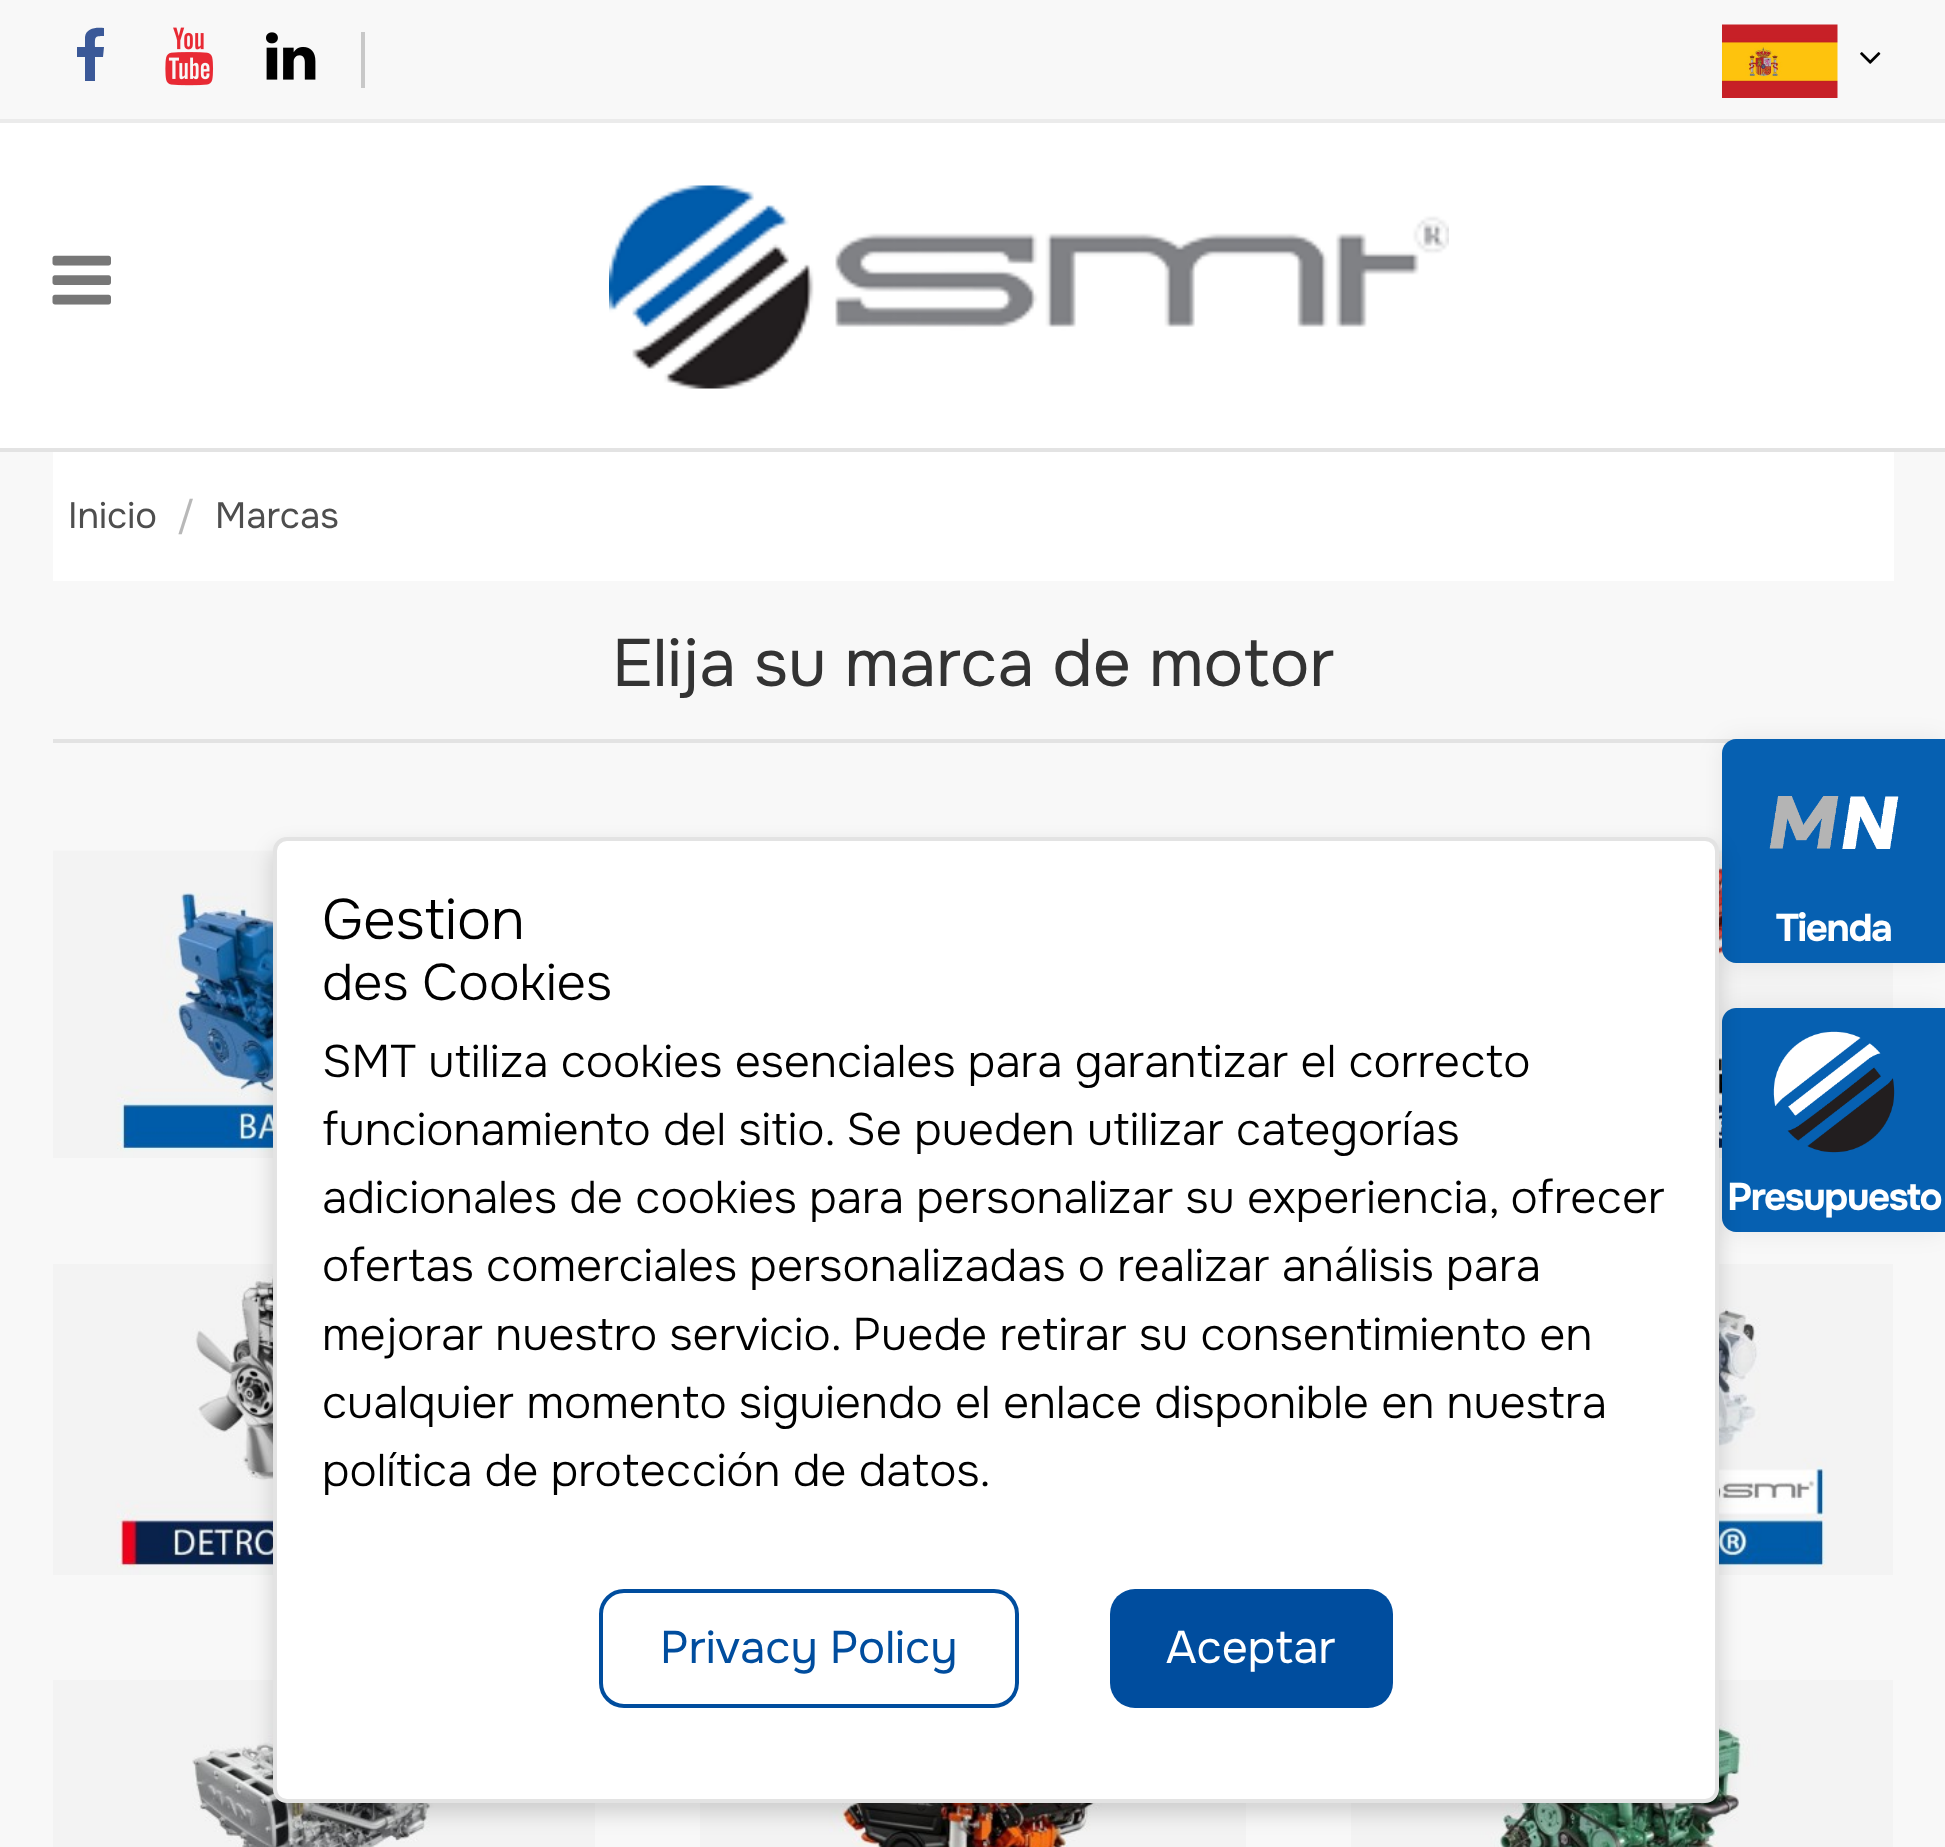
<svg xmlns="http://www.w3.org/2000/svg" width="1945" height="1847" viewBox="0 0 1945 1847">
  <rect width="100%" height="100%" fill="#f8f8f8"/>
  <path d="M0 123h1945v325H0z" fill="#fff"/>
  <path d="M0 119h1945v4H0z" fill="#ebebeb"/>
  <path d="M104 28V36C94 36 95 37 95 47H104L103 57H95V81H85V57H77V47H85V37C86 28 96 27 104 28Z" fill="#3b5998"/>
  <image x="165" y="27" width="49" height="59" href="img/1.png"/>
  <image x="266" y="32" width="50" height="48" href="img/2.png"/>
  <path d="M361 32h4v56H361z" fill="#c8c8c8"/>
  <image x="1722" y="24" width="116" height="74" href="img/3.png"/>
  <image x="1860" y="52" width="21" height="12" href="img/4.png"/>
  <path d="M0 448h1945v4H0z" fill="#e3e3e3"/>
  <image x="52" y="255" width="59" height="50" href="img/5.png"/>
  <image x="609" y="185" width="840" height="204" href="img/6.png"/>
  <path d="M53 452h1841v129H53z" fill="#fff"/>
  <path d="M53 739h1683v4H53z" fill="#e3e3e3"/>
  <image x="53" y="850" width="221" height="308" href="img/7.png"/>
  <image x="1718" y="850" width="175" height="308" href="img/8.png"/>
  <image x="53" y="1264" width="220" height="311" href="img/9.png"/>
  <image x="1719" y="1264" width="174" height="311" href="img/10.png"/>
  <image x="53" y="1680" width="542" height="167" href="img/11.png"/>
  <image x="700" y="1803" width="546" height="44" href="img/12.png"/>
  <image x="1351" y="1680" width="542" height="167" href="img/13.png"/>
  <rect x="1722" y="739" width="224" height="224" rx="14" fill="#00000012" filter="blur(12px)"/>
  <path d="M1736 739H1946V963H1736C1728.5 963 1722 956.5 1722 949V753C1722 745.5 1728.5 739 1736 739Z" fill="#0660b1"/>
  <image x="1769" y="796" width="130" height="53" href="img/14.png"/>
  <rect x="1722" y="1008" width="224" height="224" rx="14" fill="#00000012" filter="blur(12px)"/>
  <path d="M1736 1008H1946V1232H1736C1728.5 1232 1722 1225.5 1722 1218V1022C1722 1014.5 1728.5 1008 1736 1008Z" fill="#0660b1"/>
  <image x="1773" y="1031" width="122" height="122" href="img/15.png"/>
  <rect x="273" y="847" width="1446" height="966" rx="14" fill="#00000029" filter="blur(10.5px)"/>
  <rect x="275" y="839" width="1442" height="962" rx="12" fill="#fff" stroke="#e3e3e3" stroke-width="4"/>
  <rect x="601" y="1591" width="416" height="115" rx="23" fill="none" stroke="#004d9e" stroke-width="4"/>
  <rect x="1110" y="1589" width="283" height="119" rx="25" fill="#004d9e"/>
  <text x="68" y="528" font-family="Onest" font-size="36.5" fill="#4e4e4e">Inicio</text>
  <text x="177" y="528" font-family="Onest" font-size="36.5" fill="#b8b8b8">/</text>
  <text x="215" y="528" font-family="Onest" font-size="36.5" fill="#4e4e4e">Marcas</text>
  <text x="612" y="686" font-family="Onest" font-size="66.75" fill="#333">Elija su marca de motor</text>
  <g font-family="Onest" font-size="38.5" font-weight="bold" letter-spacing="-1.4" fill="#fff">
    <text x="1776" y="941">Tienda</text>
    <text x="1727" y="1210">Presupuesto</text>
  </g>
  <text x="322" y="939" font-family="Onest" font-size="57" font-weight="300" fill="#000">Gestion</text>
  <text x="322" y="1000" font-family="Onest" font-size="51.25" font-weight="300" fill="#000">des Cookies</text>
  <g font-family="Onest" font-size="45.5" font-weight="300" fill="#000">
    <text x="322" y="1077">SMT utiliza cookies esenciales para garantizar el correcto</text>
    <text x="322" y="1145">funcionamiento del sitio. Se pueden utilizar categorías</text>
    <text x="322" y="1213">adicionales de cookies para personalizar su experiencia, ofrecer</text>
    <text x="322" y="1281">ofertas comerciales personalizadas o realizar análisis para</text>
    <text x="322" y="1350">mejorar nuestro servicio. Puede retirar su consentimiento en</text>
    <text x="322" y="1418">cualquier momento siguiendo el enlace disponible en nuestra</text>
    <text x="322" y="1486">política de protección de datos.</text>
  </g>
  <text x="660" y="1663" font-family="Onest" font-size="45.5" fill="#004d9e">Privacy Policy</text>
  <text x="1166" y="1663" font-family="Onest" font-size="45.5" fill="#fff">Aceptar</text>
</svg>
